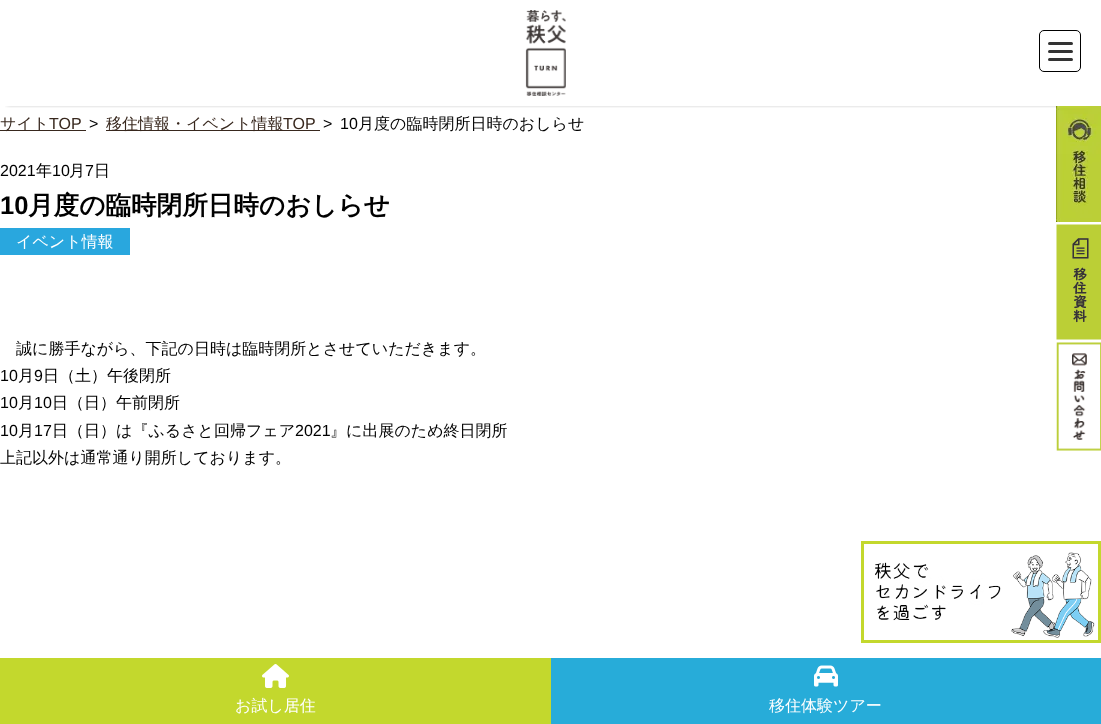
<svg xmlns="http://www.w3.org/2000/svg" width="1101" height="724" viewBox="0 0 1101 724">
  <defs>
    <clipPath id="clip1"><path d="M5 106h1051v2H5z"/></clipPath>
  </defs>
  <rect width="100%" height="100%" fill="#fff"/>
  <g clip-path="url(#clip1)">
    <path d="M7 7h1091v96H7z" fill="#000" filter="blur(2.5px)"/>
  </g>
  <image x="525" y="10" width="41" height="86" href="img/1.png"/>
  <rect x="1039.5" y="30.5" width="41" height="41" rx="4.5" fill="none" stroke="#000"/>
  <rect x="1048" y="50" width="25" height="3" rx="1.5" fill="#333"/>
  <rect x="1048" y="42" width="25" height="3" rx="1.5" fill="#333"/>
  <rect x="1048" y="58" width="25" height="3" rx="1.5" fill="#333"/>
  <image x="1056" y="106" width="45" height="116" href="img/2.png"/>
  <image x="1056" y="224" width="45" height="116" href="img/3.png"/>
  <image x="1056" y="342" width="45" height="109" href="img/4.png"/>
  <path d="M0 130h86v1H0z" fill="#38281e"/>
  <path d="M106 130h214v1H106z" fill="#38281e"/>
  <path d="M0 228h130v27H0z" fill="#29a7de"/>
  <image x="861" y="541" width="240" height="102" href="img/5.png"/>
  <path d="M0 658h551v66H0z" fill="#c3d82d"/>
  <image x="262" y="664" width="27" height="24" href="img/6.png"/>
  <path d="M551 658h550v66H551z" fill="#27acd9"/>
  <image x="814" y="665" width="24" height="22" href="img/7.png"/>
  <text x="0" y="129" font-family="WenQuanYi Zen Hei" font-size="16" font-weight="500" fill="#38281e">サイト</text>
  <text x="49" y="129" font-family="Liberation Sans" font-size="16" fill="#38281e">TOP</text>
  <text x="89" y="129" font-family="Liberation Sans" font-size="16" fill="#000">&gt;</text>
  <text x="106" y="129" font-family="WenQuanYi Zen Hei" font-size="16" font-weight="500" fill="#38281e">移住情報・イベント情報</text>
  <text x="283" y="129" font-family="Liberation Sans" font-size="16" fill="#38281e">TOP</text>
  <g font-family="Liberation Sans" font-size="16" fill="#000">
    <text x="323" y="129">&gt;</text>
    <text x="340" y="129">10</text>
  </g>
  <text x="358" y="129" font-family="WenQuanYi Zen Hei" font-size="16" font-weight="500" fill="#000">月度の臨時閉所日時のおしらせ</text>
  <text x="0" y="176" font-family="Liberation Sans" font-size="16" fill="#000">2021</text>
  <text x="36" y="176" font-family="WenQuanYi Zen Hei" font-size="16" font-weight="500" fill="#000">年</text>
  <text x="52" y="176" font-family="Liberation Sans" font-size="16" fill="#000">10</text>
  <text x="69" y="176" font-family="WenQuanYi Zen Hei" font-size="16" font-weight="500" fill="#000">月</text>
  <text x="85" y="176" font-family="Liberation Sans" font-size="16" fill="#000">7</text>
  <text x="94" y="176" font-family="WenQuanYi Zen Hei" font-size="16" font-weight="500" fill="#000">日</text>
  <text x="0" y="214" font-family="Liberation Sans" font-size="25.6" font-weight="bold" fill="#000">10</text>
  <text x="28" y="214" font-family="WenQuanYi Zen Hei" font-size="25.6" font-weight="bold" fill="#000">月度の臨時閉所日時のおしらせ</text>
  <text x="16" y="247" font-family="WenQuanYi Zen Hei" font-size="16" font-weight="500" fill="#fff">イベント情報</text>
  <text x="16" y="354" font-family="WenQuanYi Zen Hei" font-size="16" font-weight="500" fill="#000">誠に勝手ながら、下記の日時は臨時閉所とさせていただきます。</text>
  <text x="0" y="381" font-family="Liberation Sans" font-size="16" fill="#000">10</text>
  <text x="18" y="381" font-family="WenQuanYi Zen Hei" font-size="16" font-weight="500" fill="#000">月</text>
  <text x="34" y="381" font-family="Liberation Sans" font-size="16" fill="#000">9</text>
  <text x="43" y="381" font-family="WenQuanYi Zen Hei" font-size="16" font-weight="500" fill="#000">日（土）午後閉所</text>
  <text x="0" y="408" font-family="Liberation Sans" font-size="16" fill="#000">10</text>
  <text x="18" y="408" font-family="WenQuanYi Zen Hei" font-size="16" font-weight="500" fill="#000">月</text>
  <text x="34" y="408" font-family="Liberation Sans" font-size="16" fill="#000">10</text>
  <text x="52" y="408" font-family="WenQuanYi Zen Hei" font-size="16" font-weight="500" fill="#000">日（日）午前閉所</text>
  <text x="0" y="436" font-family="Liberation Sans" font-size="16" fill="#000">10</text>
  <text x="18" y="436" font-family="WenQuanYi Zen Hei" font-size="16" font-weight="500" fill="#000">月</text>
  <text x="34" y="436" font-family="Liberation Sans" font-size="16" fill="#000">17</text>
  <text x="52" y="436" font-family="WenQuanYi Zen Hei" font-size="16" font-weight="500" fill="#000">日（日）は『ふるさと回帰フェア</text>
  <text x="295" y="436" font-family="Liberation Sans" font-size="16" fill="#000">2021</text>
  <g font-family="WenQuanYi Zen Hei" font-size="16" font-weight="500" fill="#000">
    <text x="330" y="436">』に出展のため終日閉所</text>
    <text x="0" y="463">上記以外は通常通り開所しております。</text>
  </g>
  <g font-family="WenQuanYi Zen Hei" font-size="16" font-weight="500" fill="#fff">
    <text x="235" y="711">お試し居住</text>
    <text x="769" y="711">移住体験ツアー</text>
  </g>
</svg>
